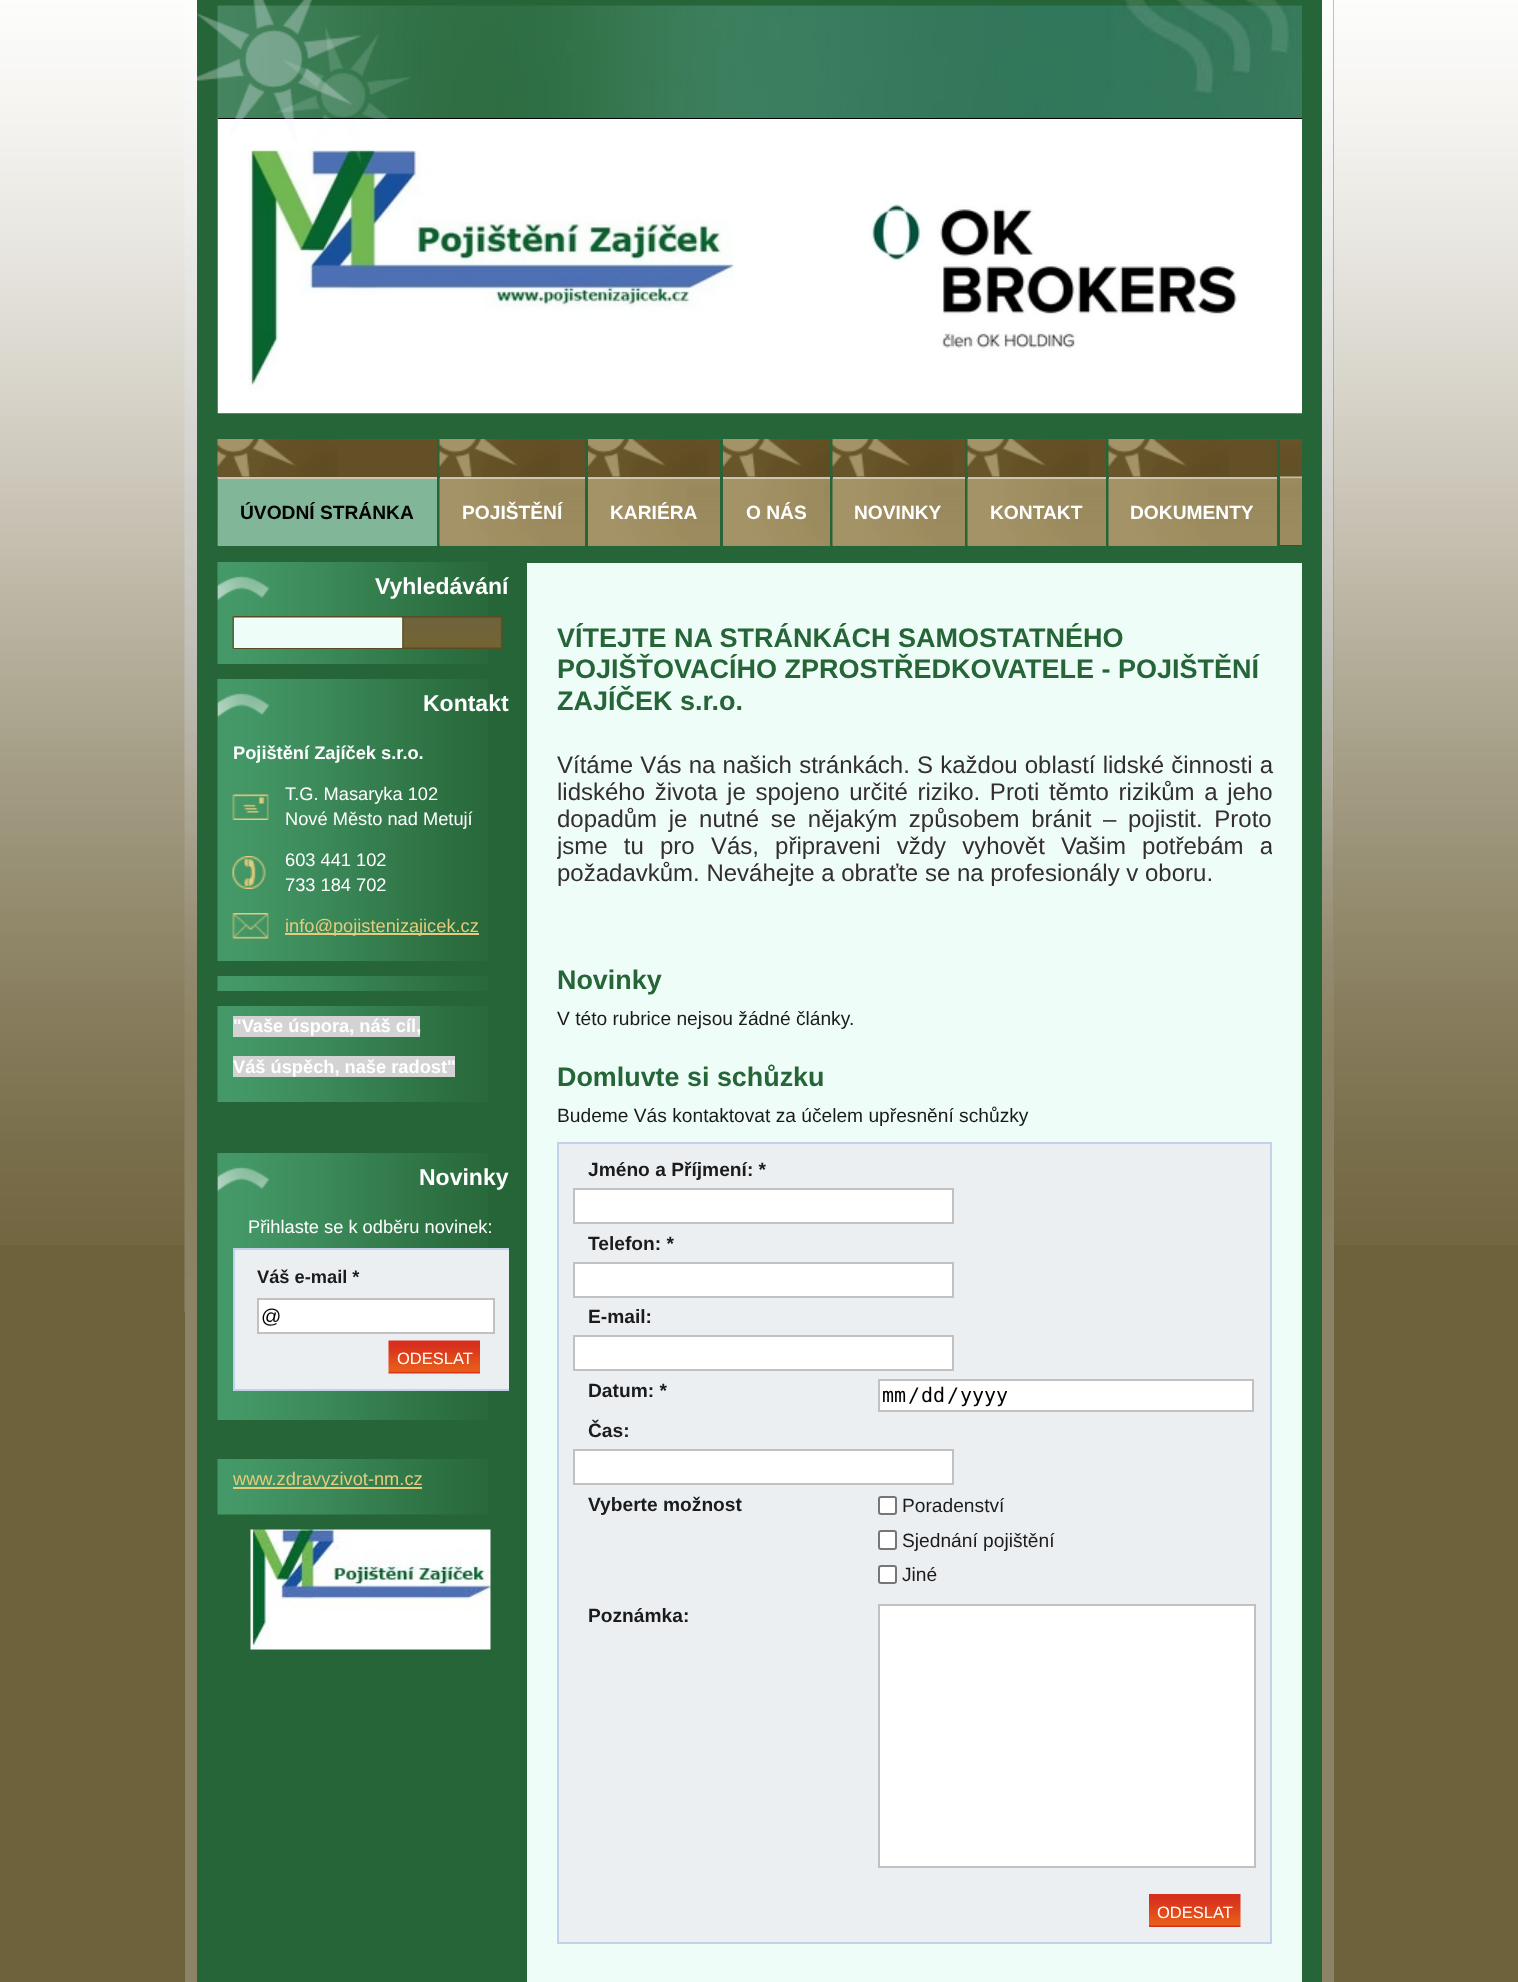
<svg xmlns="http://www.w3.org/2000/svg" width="1518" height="1982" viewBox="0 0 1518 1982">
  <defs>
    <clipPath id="clip1"><path d="M233 1208h276v183H233z"/></clipPath>
    <clipPath id="clip2"><path d="M557 585h715v347H557z"/></clipPath>
  </defs>
  <rect width="100%" height="100%" fill="#6e623c"/>
  <image x="0" y="0" width="1518" height="1245" href="img/1.png"/>
  <path d="M185 0h1149v1982H185z" fill="#8c8265"/>
  <image x="184" y="0" width="1150" height="1312" href="img/2.png"/>
  <path d="M197 0h1125v1982H197z" fill="#266537"/>
  <image x="1124" y="0" width="155" height="6" href="img/3.png"/>
  <image x="217" y="118" width="1085" height="296" href="img/6.png"/>
  <path d="M218 118h1084v1H218z" fill="#000"/>
  <image x="217" y="5" width="1085" height="113" href="img/5.png"/>
  <image x="197" y="0" width="214" height="163" href="img/4.png"/>
  <path d="M1280 545h22v1H1280z" fill="#000"/>
  <image x="217" y="439" width="1085" height="107" href="img/7.png"/>
  <path d="M218 440h219v37H218z" fill="#635027"/>
  <image x="217" y="439" width="121" height="38" href="img/8.png"/>
  <path d="M437 440h3v106H437z" fill="#266537"/>
  <path d="M218 479h219v67H218z" fill="#81b698"/>
  <path d="M218 477h219v2H218z" fill="#cdc5af"/>
  <path d="M440 440h145v37H440z" fill="#635027"/>
  <image x="439" y="439" width="121" height="38" href="img/9.png"/>
  <path d="M585 440h3v106H585z" fill="#266537"/>
  <path d="M440 545h145v1H440z" fill="#9a8a5d"/>
  <image x="439" y="478" width="100" height="68" href="img/10.png"/>
  <path d="M440 477h145v2H440z" fill="#cdc5af"/>
  <path d="M588 440h132v37H588z" fill="#635027"/>
  <image x="588" y="439" width="120" height="38" href="img/11.png"/>
  <path d="M720 440h3v106H720z" fill="#266537"/>
  <path d="M588 545h132v1H588z" fill="#9a8a5d"/>
  <image x="588" y="479" width="99" height="67" href="img/12.png"/>
  <path d="M588 477h132v2H588z" fill="#cdc5af"/>
  <path d="M723 476h107v1H723z" fill="#635027"/>
  <image x="723" y="439" width="109" height="38" href="img/13.png"/>
  <path d="M830 440h3v106H830z" fill="#266537"/>
  <path d="M723 545h107v1H723z" fill="#9a8a5d"/>
  <image x="723" y="479" width="101" height="67" href="img/14.png"/>
  <path d="M723 477h107v2H723z" fill="#cdc5af"/>
  <path d="M833 440h132v37H833z" fill="#635027"/>
  <image x="832" y="439" width="121" height="38" href="img/15.png"/>
  <path d="M965 440h3v106H965z" fill="#266537"/>
  <path d="M833 545h132v1H833z" fill="#9a8a5d"/>
  <image x="832" y="478" width="100" height="68" href="img/16.png"/>
  <path d="M833 477h132v2H833z" fill="#cdc5af"/>
  <path d="M968 440h138v37H968z" fill="#635027"/>
  <image x="967" y="439" width="122" height="38" href="img/17.png"/>
  <path d="M1106 440h3v106H1106z" fill="#266537"/>
  <path d="M968 545h138v1H968z" fill="#9a8a5d"/>
  <image x="967" y="478" width="101" height="68" href="img/18.png"/>
  <path d="M968 477h138v2H968z" fill="#cdc5af"/>
  <path d="M1109 440h168v37H1109z" fill="#635027"/>
  <image x="1108" y="439" width="121" height="38" href="img/19.png"/>
  <path d="M1277 440h3v106H1277z" fill="#266537"/>
  <path d="M1109 545h168v1H1109z" fill="#9a8a5d"/>
  <image x="1108" y="478" width="100" height="68" href="img/20.png"/>
  <path d="M1109 477h168v2H1109z" fill="#cdc5af"/>
  <image x="217" y="562" width="271" height="102" href="img/21.png"/>
  <image x="217" y="562" width="53" height="39" href="img/22.png"/>
  <image x="232" y="616" width="271" height="33" href="img/23.png"/>
  <path d="M234 618h168v30H234z" fill="#eefdf8"/>
  <image x="217" y="679" width="271" height="282" href="img/24.png"/>
  <image x="217" y="679" width="53" height="39" href="img/22.png"/>
  <image x="232" y="794" width="37" height="26" href="img/25.png"/>
  <image x="232" y="856" width="34" height="33" href="img/26.png"/>
  <image x="232" y="913" width="37" height="26" href="img/27.png"/>
  <path d="M285 933h134v2H285z" fill="#e4cb7d"/>
  <path d="M419 933h60v2H419z" fill="#e4cb7d"/>
  <image x="217" y="976" width="271" height="15" href="img/28.png"/>
  <image x="217" y="1006" width="271" height="96" href="img/29.png"/>
  <path d="M233 1016h187v21H233z" fill="#d3d3d3"/>
  <path d="M233 1056h222v21H233z" fill="#d3d3d3"/>
  <image x="217" y="1153" width="271" height="267" href="img/30.png"/>
  <image x="217" y="1153" width="53" height="39" href="img/22.png"/>
  <path d="M235 1250h274v139H235z" fill="#eceff2"/>
  <g clip-path="url(#clip1)">
    <path d="M234 1249h277v141H234z" fill="none" stroke="#c1d3eb" stroke-width="2"/>
  </g>
  <path d="M258 1299h236v34H258z" fill="#fff" stroke="#c1c1c1" stroke-width="2"/>
  <image x="388" y="1340" width="92" height="34" href="img/31.png"/>
  <image x="217" y="1459" width="271" height="56" href="img/32.png"/>
  <path d="M233 1487h189v2H233z" fill="#e4cb7d"/>
  <image x="250" y="1529" width="241" height="121" href="img/33.png"/>
  <path d="M527 563h775v1419H527z" fill="#eefdf8"/>
  <path d="M558 1143h713v800H558z" fill="#eceff2" stroke="#c1d3eb" stroke-width="2"/>
  <path d="M574 1189h379v34H574z" fill="#fff" stroke="#c1c1c1" stroke-width="2"/>
  <path d="M574 1263h379v34H574z" fill="#fff" stroke="#c1c1c1" stroke-width="2"/>
  <path d="M574 1336h379v34H574z" fill="#fff" stroke="#c1c1c1" stroke-width="2"/>
  <path d="M879 1380h374v31H879z" fill="#fff" stroke="#c1c1c1" stroke-width="2"/>
  <path d="M574 1450h379v34H574z" fill="#fff" stroke="#c1c1c1" stroke-width="2"/>
  <rect x="879" y="1497" width="17" height="17" rx="2" fill="#fff" stroke="#767676" stroke-width="2"/>
  <rect x="879" y="1531" width="17" height="18" rx="2" fill="#fff" stroke="#767676" stroke-width="2"/>
  <rect x="879" y="1566" width="17" height="17" rx="2" fill="#fff" stroke="#767676" stroke-width="2"/>
  <path d="M879 1605h376v262H879z" fill="#fff" stroke="#c1c1c1" stroke-width="2"/>
  <image x="1149" y="1894" width="92" height="33" href="img/34.png"/>
  <text x="240" y="519" font-family="Liberation Sans" font-size="19.2" font-weight="bold" fill="#000">ÚVODNÍ STRÁNKA</text>
  <g font-family="Liberation Sans" font-size="19.2" font-weight="bold" fill="#fff">
    <text x="462" y="519">POJIŠTĚNÍ</text>
    <text x="610" y="519">KARIÉRA</text>
    <text x="746" y="519">O NÁS</text>
    <text x="854" y="519">NOVINKY</text>
    <text x="990" y="519">KONTAKT</text>
    <text x="1130" y="519">DOKUMENTY</text>
  </g>
  <g font-family="Liberation Sans" font-size="23" font-weight="bold" fill="#fff">
    <text x="375" y="594">Vyhledávání</text>
    <text x="423" y="711">Kontakt</text>
  </g>
  <text x="233" y="759" font-family="Liberation Sans" font-size="18.25" font-weight="bold" fill="#fff">Pojištění Zajíček s.r.o.</text>
  <g font-family="Liberation Sans" font-size="18.25" fill="#fff">
    <text x="285" y="800">T.G. Masaryka 102</text>
    <text x="285" y="825">Nové Město nad Metují</text>
    <text x="285" y="866">603 441 102</text>
    <text x="285" y="891">733 184 702</text>
  </g>
  <g font-family="Liberation Sans" font-size="18.25" fill="#e4cb7d">
    <text x="285" y="932">info@pojisteniza</text>
    <text x="419" y="932">jicek.cz</text>
  </g>
  <g font-family="Liberation Sans" font-size="18.25" font-weight="bold" fill="#fff">
    <text x="233" y="1032">"Vaše úspora, náš cíl,</text>
    <text x="233" y="1073">Váš úspěch, naše radost"</text>
  </g>
  <text x="419" y="1185" font-family="Liberation Sans" font-size="23" font-weight="bold" fill="#fff">Novinky</text>
  <text x="248" y="1233" font-family="Liberation Sans" font-size="18.25" fill="#fff">Přihlaste se k odběru novinek:</text>
  <text x="257" y="1283" font-family="Liberation Sans" font-size="18.25" font-weight="bold" fill="#1b1b1b">Váš e-mail *</text>
  <text x="261" y="1323" font-family="Liberation Sans" font-size="20" fill="#000">@</text>
  <text x="397" y="1364" font-family="Liberation Sans" font-size="16.5" fill="#fff">ODESLAT</text>
  <text x="233" y="1485" font-family="Liberation Sans" font-size="18.25" fill="#e4cb7d">www.zdravyzivot-nm.cz</text>
  <g font-family="Liberation Sans" font-size="27" font-weight="bold" fill="#266537">
    <text x="557" y="647">VÍTEJTE NA STRÁNKÁCH SAMOSTATNÉHO</text>
    <text x="557" y="678">POJIŠŤOVACÍHO ZPROSTŘEDKOVATELE - POJIŠTĚNÍ</text>
    <text x="557" y="710">ZAJÍČEK s.r.o.</text>
  </g>
  <g font-family="Liberation Sans" font-size="24" fill="#352e2e">
    <text x="557" y="773" word-spacing="0.5">Vítáme Vás na našich stránkách. S každou oblastí lidské činnosti a</text>
    <text x="557" y="800" word-spacing="3">lidského života je spojeno určité riziko. Proti těmto rizikům a jeho</text>
    <text x="557" y="827" word-spacing="5">dopadům je nutné se nějakým způsobem bránit – pojistit. Proto</text>
  </g>
  <g clip-path="url(#clip2)">
    <text x="557" y="854" word-spacing="9.5" font-family="Liberation Sans" font-size="24" fill="#352e2e">jsme tu pro Vás, připraveni vždy vyhovět Vašim potřebám a</text>
  </g>
  <text x="557" y="881" font-family="Liberation Sans" font-size="24" fill="#352e2e">požadavkům. Neváhejte a obraťte se na profesionály v oboru.</text>
  <text x="557" y="989" font-family="Liberation Sans" font-size="26.9" font-weight="bold" fill="#266537">Novinky</text>
  <text x="557" y="1025" font-family="Liberation Sans" font-size="19.2" fill="#1b1b1b">V této rubrice nejsou žádné články.</text>
  <text x="557" y="1086" font-family="Liberation Sans" font-size="26.9" font-weight="bold" fill="#266537">Domluvte si schůzku</text>
  <text x="557" y="1122" font-family="Liberation Sans" font-size="19.2" fill="#1b1b1b">Budeme Vás kontaktovat za účelem upřesnění schůzky</text>
  <g font-family="Liberation Sans" font-size="19.2" font-weight="bold" fill="#1b1b1b">
    <text x="588" y="1176">Jméno a Příjmení: *</text>
    <text x="588" y="1250">Telefon: *</text>
    <text x="588" y="1323">E-mail:</text>
    <text x="588" y="1397">Datum: *</text>
  </g>
  <g font-family="DejaVu Sans Mono" font-size="20" fill="#000">
    <text x="882" y="1402">mm</text>
    <text x="908" y="1402">/</text>
    <text x="921" y="1402">dd</text>
    <text x="947" y="1402">/</text>
    <text x="960" y="1402">yyyy</text>
  </g>
  <g font-family="Liberation Sans" font-size="19.2" font-weight="bold" fill="#1b1b1b">
    <text x="588" y="1437">Čas:</text>
    <text x="588" y="1511">Vyberte možnost</text>
  </g>
  <g font-family="Liberation Sans" font-size="19.2" fill="#1b1b1b">
    <text x="902" y="1512">Poradenství</text>
    <text x="902" y="1547">Sjednání pojištění</text>
    <text x="902" y="1581">Jiné</text>
  </g>
  <text x="588" y="1622" font-family="Liberation Sans" font-size="19.2" font-weight="bold" fill="#1b1b1b">Poznámka:</text>
  <text x="1157" y="1918" font-family="Liberation Sans" font-size="16.5" fill="#fff">ODESLAT</text>
</svg>
